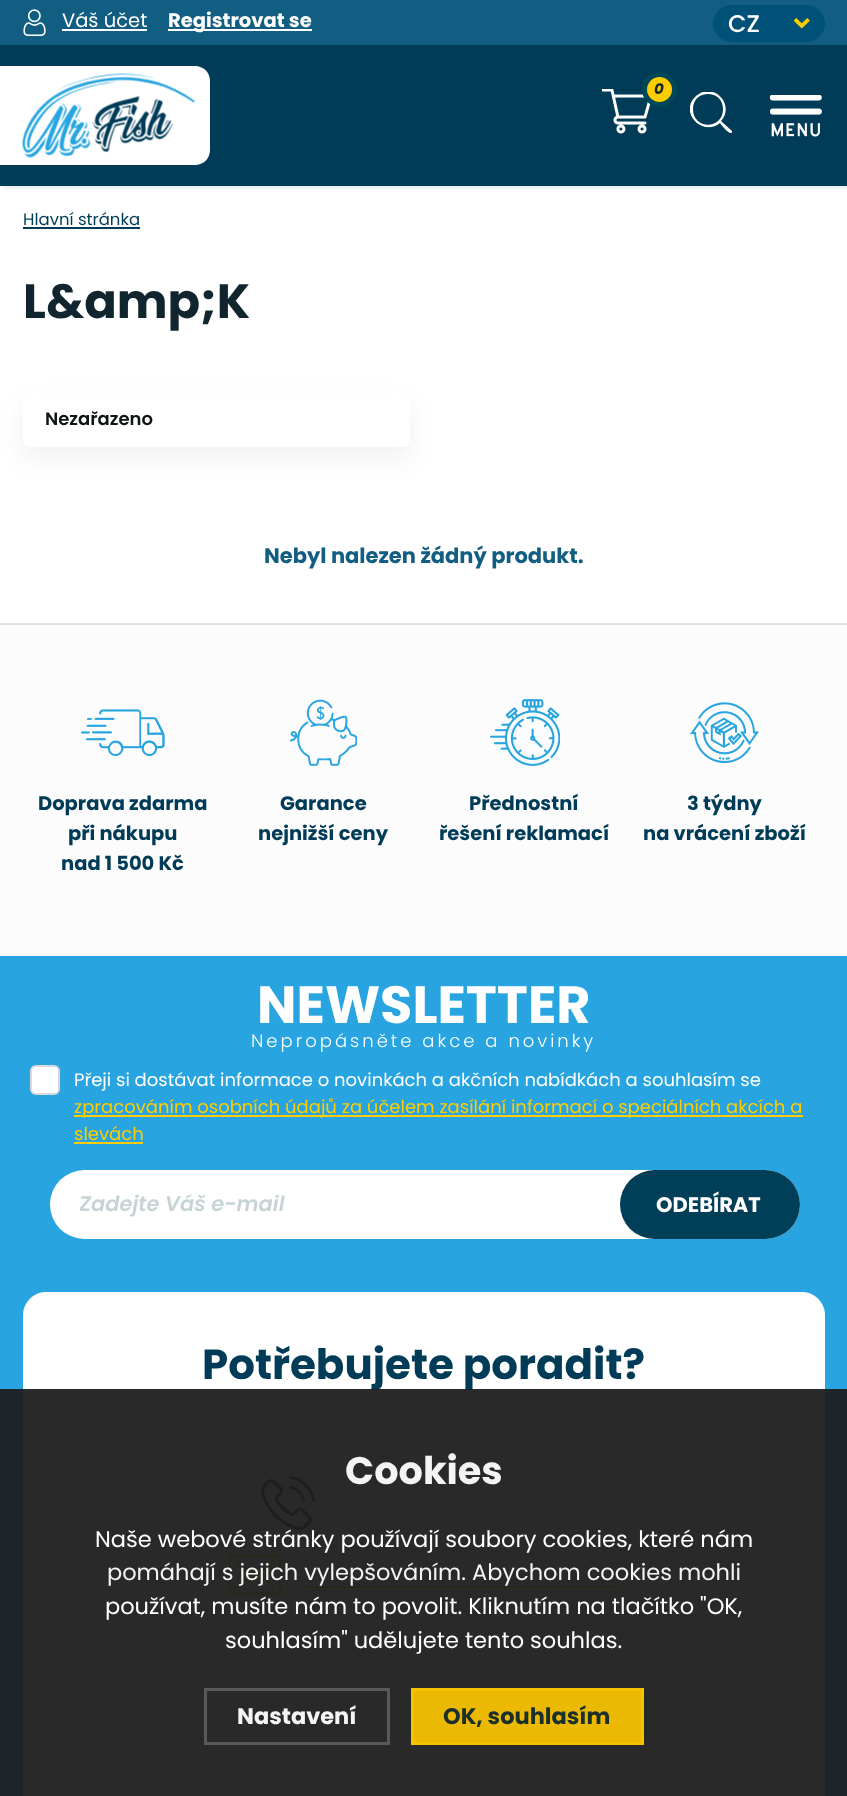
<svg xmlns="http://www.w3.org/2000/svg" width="847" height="1796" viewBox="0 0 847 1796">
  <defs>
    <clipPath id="clip1"><path d="M690 92h42v42H690z"/></clipPath>
    <clipPath id="clip2"><path d="M80 1190h690v31H80z"/></clipPath>
  </defs>
  <rect width="100%" height="100%" fill="#fff"/>
  <path d="M3 3h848v186H3z" fill="#004a8114" filter="blur(1.5px)"/>
  <path d="M0 45h847v141H0z" fill="#003b57"/>
  <path d="M0 0h847v45H0z" fill="#125e82"/>
  <image x="23" y="9" width="23" height="27" href="img/1.png"/>
  <path d="M62 29h85v2H62z" fill="#fff"/>
  <path d="M168 29h144v2H168z" fill="#fff"/>
  <path d="M23 66H195C203.5 66 210 72.5 210 81V150C210 158.5 203.5 165 195 165H23Z" fill="#fff"/>
  <path d="M0 66h23v99H0z" fill="#fff"/>
  <image x="22" y="73" width="174" height="85" href="img/2.png"/>
  <image x="602" y="89" width="49" height="45" href="img/3.png"/>
  <circle cx="659.5" cy="89.5" r="15" fill="#fc0" stroke="#004857" stroke-width="5"/>
  <g clip-path="url(#clip1)">
    <path d="M732 131L721 121C736 104 712 80 695 97C679 113 703 137 720 123C721 125 729 134 731 133C732 133 732 132 732 131ZM693 109C693 89 723 89 723 109C723 130 693 130 693 109Z" fill="#fff" fill-rule="evenodd"/>
  </g>
  <image x="770" y="95" width="52" height="42" href="img/4.png"/>
  <rect x="713" y="5" width="112" height="37" rx="18.5" fill="#005177"/>
  <image x="794" y="18" width="16" height="11" href="img/5.png"/>
  <path d="M23 227h117v2H23z" fill="#003b57"/>
  <rect x="23" y="404" width="387" height="54" rx="8" fill="#0000000f" filter="blur(13.5px)"/>
  <rect x="23" y="393" width="387" height="54" rx="8" fill="#fff"/>
  <path d="M0 625h847v331H0z" fill="#fcfcfc"/>
  <path d="M0 623h847v2H0z" fill="#e1e1e1"/>
  <image x="81" y="709" width="84" height="47" href="img/6.png"/>
  <image x="290" y="699" width="67" height="67" href="img/7.png"/>
  <image x="490" y="699" width="70" height="67" href="img/8.png"/>
  <image x="690" y="702" width="69" height="62" href="img/9.png"/>
  <path d="M0 956h847v840H0z" fill="#28a5e0"/>
  <rect x="31" y="1066" width="28" height="28" rx="5" fill="#fff" stroke="#d9d9d9" stroke-width="2"/>
  <path d="M74 1115h729v2H74z" fill="#fc0"/>
  <path d="M74 1142h69v2H74z" fill="#fc0"/>
  <rect x="50" y="1170" width="750" height="69" rx="34.5" fill="#fff"/>
  <rect x="620" y="1170" width="180" height="69" rx="34.5" fill="#003f57"/>
  <path d="M46 1292H802C814.5 1292 825 1302.5 825 1315V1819H23V1315C23 1302.5 33.5 1292 46 1292Z" fill="#fff"/>
  <image x="261" y="1475" width="54" height="55" href="img/10.png"/>
  <image x="228" y="1554" width="54" height="41" href="img/11.png"/>
  <path d="M303 1586h317v2H303z" fill="#fc0"/>
  <text x="62" y="27" font-family="Poppins" font-size="19.5" fill="#fff">Váš účet</text>
  <text x="168" y="27" font-family="Poppins" font-size="19.5" font-weight="bold" fill="#fff">Registrovat se</text>
  <text x="654" y="94" font-family="Poppins" font-size="15" font-weight="bold" font-style="italic" fill="#10252e">0</text>
  <text x="728" y="32" font-family="Poppins" font-size="24" font-weight="500" fill="#fff">CZ</text>
  <text x="23" y="225" font-family="Poppins" font-size="16.5" fill="#003b57">Hlavní stránka</text>
  <text x="23" y="318" font-family="Poppins" font-size="48" font-weight="bold" fill="#10252e">L&amp;amp;K</text>
  <text x="45" y="425" font-family="Poppins" font-size="18" font-weight="600" fill="#101414">Nezařazeno</text>
  <text x="264" y="563" font-family="Poppins" font-size="21" font-weight="bold" fill="#115e82">Nebyl nalezen žádný produkt.</text>
  <g font-family="Poppins" font-size="19.5" font-weight="bold" fill="#003b57">
    <text x="38" y="810">Doprava zdarma</text>
    <text x="68" y="840">při nákupu</text>
    <text x="61" y="870">nad 1 500 Kč</text>
    <text x="280" y="810">Garance</text>
    <text x="258" y="840">nejnižší ceny</text>
    <text x="469" y="810">Přednostní</text>
    <text x="439" y="840">řešení reklamací</text>
    <text x="687" y="810">3 týdny</text>
    <text x="643" y="840">na vrácení zboží</text>
  </g>
  <text x="257" y="1023" font-family="Poppins" font-size="52.5" font-weight="bold" fill="#fff">NEWSLETTER</text>
  <text x="251" y="1047" font-family="Poppins" font-size="18" font-weight="300" letter-spacing="3" fill="#fff">Nepropásněte akce a novinky</text>
  <text x="74" y="1086" font-family="Poppins" font-size="18" fill="#fff">Přeji si dostávat informace o novinkách a akčních nabídkách a souhlasím se</text>
  <g font-family="Poppins" font-size="18" fill="#fc0">
    <text x="74" y="1113">zpracováním osobních údajů za účelem zasílání informací o speciálních akcích a</text>
    <text x="74" y="1140">slevách</text>
  </g>
  <g clip-path="url(#clip2)">
    <text x="79" y="1211" font-family="Poppins" font-size="21" font-weight="600" font-style="italic" fill="#c7d4d6">Zadejte Váš e-mail</text>
  </g>
  <text x="656" y="1212" font-family="Poppins" font-size="21" font-weight="bold" fill="#fff">ODEBÍRAT</text>
  <text x="202" y="1379" font-family="Poppins" font-size="42" font-weight="bold" fill="#003b57">Potřebujete poradit?</text>
  <path d="M0 1389h847v407H0z" fill="#1d1d1df2"/>
  <text x="345" y="1484" font-family="Poppins" font-size="38.25" font-weight="bold" fill="#f4f4f4">Cookies</text>
  <text x="95" y="1547" font-family="Poppins" font-size="22.5" fill="#fff">Naše webové stránky používají soubory cookies, které nám</text>
  <text x="107" y="1580" font-family="Poppins" font-size="22.5" fill="#f4f4f4">pomáhají s jejich vylepšováním. Abychom cookies mohli</text>
  <g font-family="Poppins" font-size="22.5" fill="#fff">
    <text x="105" y="1614">používat, musíte nám to povolit. Kliknutím na tlačítko "OK,</text>
    <text x="225" y="1648">souhlasím" udělujete tento souhlas.</text>
  </g>
  <path d="M205.5 1689.5h183v54H205.5z" fill="none" stroke="#5c5c5df2" stroke-width="3"/>
  <text x="237" y="1724" font-family="Poppins" font-size="22.5" font-weight="bold" fill="#f4f4f4">Nastavení</text>
  <path d="M412.5 1689.5h230v54H412.5z" fill="#f6c100f2" stroke="#f5c100" stroke-width="3"/>
  <text x="443" y="1724" font-family="Poppins" font-size="22.5" font-weight="bold" fill="#1b2f2b">OK, souhlasím</text>
</svg>
